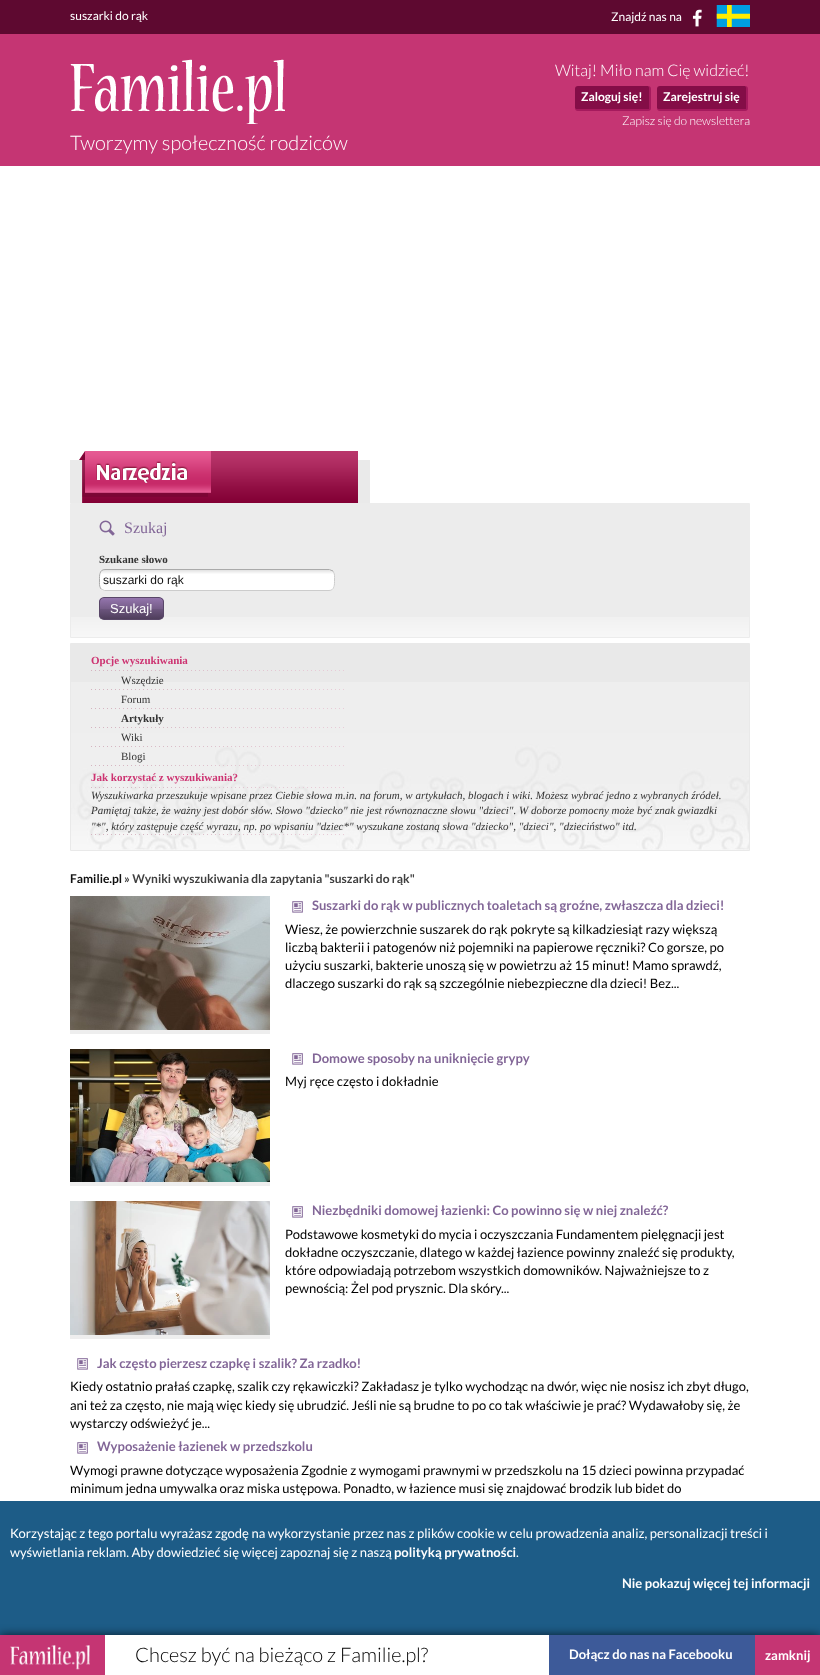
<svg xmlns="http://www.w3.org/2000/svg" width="820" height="1675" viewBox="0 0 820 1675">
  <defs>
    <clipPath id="clip1"><rect x="99" y="597" width="65" height="23" rx="5"/></clipPath>
    <linearGradient id="g1" gradientUnits="userSpaceOnUse" x1="100" y1="598" x2="100" y2="619"><stop offset="0" stop-color="#9475ad"/><stop offset="0.5" stop-color="#765d89"/><stop offset="0.51" stop-color="#6d567f"/><stop offset="1" stop-color="#4f3e5c"/></linearGradient>
  </defs>
  <rect width="100%" height="100%" fill="#fff"/>
  <path d="M0 0h820v34H0z" fill="#5e0930"/>
  <image x="692" y="9" width="10" height="18" href="img/1.png"/>
  <image x="716" y="5" width="34" height="22" href="img/2.png"/>
  <path d="M0 34h820v132H0z" fill="#c53573"/>
  <path d="M578 86H648C649 86 649 87 649 89V108C649 109 649 109 648 109H578C576 109 575 109 575 108V89C575 87 576 86 578 86Z" fill="#840d47"/>
  <path d="M578 86H648C650 86 651 87 651 89V108C651 110 650 111 648 111H578C576 111 575 110 575 108V89C575 87 576 86 578 86ZM578 86H648C649 86 649 87 649 89V108C649 109 649 109 648 109H578C576 109 575 109 575 108V89C575 87 576 86 578 86Z" fill="#a51a5d" fill-rule="evenodd"/>
  <path d="M660 86H745C746 86 746 87 746 89V108C746 109 746 109 745 109H660C658 109 657 109 657 108V89C657 87 658 86 660 86Z" fill="#840d47"/>
  <path d="M660 86H745C747 86 748 87 748 89V108C748 110 747 111 745 111H660C658 111 657 110 657 108V89C657 87 658 86 660 86ZM660 86H745C746 86 746 87 746 89V108C746 109 746 109 745 109H660C658 109 657 109 657 108V89C657 87 658 86 660 86Z" fill="#a51a5d" fill-rule="evenodd"/>
  <image x="70" y="59" width="215" height="65" href="img/3.png"/>
  <image x="70" y="451" width="300" height="52" href="img/4.png"/>
  <path d="M71 504h678v113H71z" fill="#ececec"/>
  <image x="71" y="617" width="678" height="20" href="img/5.png"/>
  <path d="M70.5 503.5h679v134H70.5z" fill="none" stroke="#ececec"/>
  <image x="99" y="520" width="16" height="16" href="img/6.png"/>
  <rect x="99" y="569" width="236" height="22" rx="6" fill="#fff"/>
  <image x="100" y="570" width="234" height="4" href="img/7.png"/>
  <path d="M333 571C335 573.5 334.5 577 334.5 580C334.5 584 335 590.5 329 590.5H104.5L101 589" fill="none" stroke="#ccc"/>
  <path d="M101 589C99 586.5 99.5 583 99.5 580C99.5 576 99 569.5 105 569.5H329.5L333 571" fill="none" stroke="#aaa"/>
  <g clip-path="url(#clip1)">
    <path d="M99 598h65v21H99z" fill="url(#g1)"/>
  </g>
  <rect x="99.5" y="597.5" width="64" height="22" rx="4.5" fill="none" stroke="#594768"/>
  <path d="M71 644h678v38H71z" fill="#e9e9e9"/>
  <image x="71" y="682" width="678" height="168" href="img/8.png"/>
  <path d="M70.5 643.5h679v207H70.5z" fill="none" stroke="#e9e9e9"/>
  <image x="91" y="670" width="253" height="1" href="img/9.png"/>
  <image x="91" y="689" width="253" height="1" href="img/10.png"/>
  <image x="91" y="708" width="253" height="1" href="img/10.png"/>
  <image x="91" y="727" width="253" height="1" href="img/10.png"/>
  <image x="91" y="746" width="253" height="1" href="img/11.png"/>
  <image x="91" y="765" width="253" height="1" href="img/12.png"/>
  <image x="91" y="787" width="253" height="1" href="img/13.png"/>
  <image x="91" y="834" width="253" height="1" href="img/14.png"/>
  <path d="M70 1030h200v4H70z" fill="#eee"/>
  <image x="70" y="896" width="200" height="134" href="img/15.png"/>
  <image x="292" y="901" width="11" height="12" href="img/16.png"/>
  <path d="M70 1182h200v4H70z" fill="#eee"/>
  <image x="70" y="1049" width="200" height="133" href="img/17.png"/>
  <image x="292" y="1053" width="11" height="12" href="img/16.png"/>
  <path d="M70 1335h200v4H70z" fill="#eee"/>
  <image x="70" y="1201" width="200" height="134" href="img/18.png"/>
  <image x="292" y="1206" width="11" height="12" href="img/16.png"/>
  <image x="77" y="1358" width="11" height="12" href="img/16.png"/>
  <image x="77" y="1442" width="11" height="12" href="img/16.png"/>
  <path d="M0 1501h820v134H0z" fill="#1d5c87"/>
  <path d="M0 1635h820v40H0z" fill="#000000b3" filter="blur(5px)"/>
  <path d="M105 1635h444v40H105z" fill="#fff"/>
  <path d="M0 1635h105v40H0z" fill="#c53573"/>
  <image x="10" y="1645" width="80" height="25" href="img/19.png"/>
  <path d="M549 1635h206v40H549z" fill="#3d5a99"/>
  <path d="M755 1635h65v40H755z" fill="#c53573"/>
  <g font-family="Lato" font-size="12" fill="#fff">
    <text x="70" y="20">suszarki do rąk</text>
    <text x="611" y="21">Znajdź nas na</text>
  </g>
  <text x="555" y="76" font-family="Lato" font-size="16" font-weight="300" fill="#fff">Witaj! Miło nam Cię widzieć!</text>
  <g font-family="Lato" font-size="12" font-weight="bold" fill="#fff">
    <text x="581" y="101">Zaloguj się!</text>
    <text x="663" y="101">Zarejestruj się</text>
  </g>
  <text x="622" y="125" font-family="Lato" font-size="12" font-weight="300" fill="#fff">Zapisz się do newslettera</text>
  <text x="70" y="150" font-family="Lato" font-size="20" font-weight="300" fill="#fff">Tworzymy społeczność rodziców</text>
  <text x="124" y="533" font-family="Liberation Serif" font-size="16" fill="#826697">Szukaj</text>
  <text x="99" y="563" font-family="Liberation Serif" font-size="11" font-weight="bold" fill="#333">Szukane słowo</text>
  <text x="103" y="584" font-family="Liberation Sans" font-size="12" fill="#111">suszarki do rąk</text>
  <text x="110" y="613" font-family="Liberation Sans" font-size="13" fill="#fff">Szukaj!</text>
  <text x="91" y="664" font-family="Liberation Serif" font-size="11" font-weight="bold" fill="#cd3371">Opcje wyszukiwania</text>
  <g font-family="Liberation Serif" font-size="11" fill="#333">
    <text x="121" y="684">Wszędzie</text>
    <text x="121" y="703">Forum</text>
  </g>
  <text x="121" y="722" font-family="Liberation Serif" font-size="11" font-weight="bold" fill="#333">Artykuły</text>
  <g font-family="Liberation Serif" font-size="11" fill="#333">
    <text x="121" y="741">Wiki</text>
    <text x="121" y="760">Blogi</text>
  </g>
  <text x="91" y="781" font-family="Liberation Serif" font-size="11" font-weight="bold" fill="#cd3371">Jak korzystać z wyszukiwania?</text>
  <g font-family="Liberation Serif" font-size="11" font-style="italic" fill="#333">
    <text x="91" y="799">Wyszukiwarka przeszukuje wpisane przez Ciebie słowa m.in. na forum, w artykułach, blogach i wiki. Możesz wybrać jedno z wybranych źródeł.</text>
    <text x="91" y="814">Pamiętaj także, że ważny jest dobór słów. Słowo "dziecko" nie jest równoznaczne słowu "dzieci". W doborze pomocny może być znak gwiazdki</text>
    <text x="91" y="830">"*", który zastępuje część wyrazu, np. po wpisaniu "dziec*" wyszukane zostaną słowa "dziecko", "dzieci", "dzieciństwo" itd.</text>
  </g>
  <text x="70" y="883" font-family="Lato" font-size="12" font-weight="bold" fill="#111">Familie.pl</text>
  <text x="124" y="883" font-family="Lato" font-size="12" font-weight="bold" fill="#3f3f3f">» Wyniki wyszukiwania dla zapytania "suszarki do rąk"</text>
  <text x="312" y="910" font-family="Lato" font-size="13" font-weight="bold" fill="#826697">Suszarki do rąk w publicznych toaletach są groźne, zwłaszcza dla dzieci!</text>
  <g font-family="Lato" font-size="13" fill="#000">
    <text x="285" y="934">Wiesz, że powierzchnie suszarek do rąk pokryte są kilkadziesiąt razy większą</text>
    <text x="285" y="952">liczbą bakterii i patogenów niż pojemniki na papierowe ręczniki? Co gorsze, po</text>
    <text x="285" y="970">użyciu suszarki, bakterie unoszą się w powietrzu aż 15 minut! Mamo sprawdź,</text>
    <text x="285" y="988">dlaczego suszarki do rąk są szczególnie niebezpieczne dla dzieci! Bez...</text>
  </g>
  <text x="312" y="1063" font-family="Lato" font-size="13" font-weight="bold" fill="#826697">Domowe sposoby na uniknięcie grypy</text>
  <text x="285" y="1086" font-family="Lato" font-size="13" fill="#000">Myj ręce często i dokładnie</text>
  <text x="312" y="1215" font-family="Lato" font-size="13" font-weight="bold" fill="#826697">Niezbędniki domowej łazienki: Co powinno się w niej znaleźć?</text>
  <g font-family="Lato" font-size="13" fill="#000">
    <text x="285" y="1239">Podstawowe kosmetyki do mycia i oczyszczania Fundamentem pielęgnacji jest</text>
    <text x="285" y="1257">dokładne oczyszczanie, dlatego w każdej łazience powinny znaleźć się produkty,</text>
    <text x="285" y="1275">które odpowiadają potrzebom wszystkich domowników. Najważniejsze to z</text>
    <text x="285" y="1293">pewnością: Żel pod prysznic. Dla skóry...</text>
  </g>
  <text x="97" y="1368" font-family="Lato" font-size="13" font-weight="bold" fill="#826697">Jak często pierzesz czapkę i szalik? Za rzadko!</text>
  <g font-family="Lato" font-size="13" fill="#000">
    <text x="70" y="1391">Kiedy ostatnio prałaś czapkę, szalik czy rękawiczki? Zakładasz je tylko wychodząc na dwór, więc nie nosisz ich zbyt długo,</text>
    <text x="70" y="1410">ani też za często, nie mają więc kiedy się ubrudzić. Jeśli nie są brudne to po co tak właściwie je prać? Wydawałoby się, że</text>
    <text x="70" y="1428">wystarczy odświeżyć je...</text>
  </g>
  <text x="97" y="1451" font-family="Lato" font-size="13" font-weight="bold" fill="#826697">Wyposażenie łazienek w przedszkolu</text>
  <g font-family="Lato" font-size="13" fill="#000">
    <text x="70" y="1475">Wymogi prawne dotyczące wyposażenia Zgodnie z wymogami prawnymi w przedszkolu na 15 dzieci powinna przypadać</text>
    <text x="70" y="1493">minimum jedna umywalka oraz miska ustępowa. Ponadto, w łazience musi się znajdować brodzik lub bidet do</text>
  </g>
  <g font-family="Lato" font-size="13" fill="#fff">
    <text x="10" y="1538">Korzystając z tego portalu wyrażasz zgodę na wykorzystanie przez nas z plików cookie w celu prowadzenia analiz, personalizacji treści i</text>
    <text x="10" y="1557">wyświetlania reklam. Aby dowiedzieć się więcej zapoznaj się z naszą</text>
  </g>
  <text x="394" y="1557" font-family="Lato" font-size="13" font-weight="bold" fill="#fff">polityką prywatności</text>
  <text x="516" y="1557" font-family="Lato" font-size="13" fill="#fff">.</text>
  <text x="622" y="1588" font-family="Lato" font-size="13" font-weight="bold" fill="#fff">Nie pokazuj więcej tej informacji</text>
  <text x="135" y="1662" font-family="Lato" font-size="20" font-weight="300" fill="#000">Chcesz być na bieżąco z Familie.pl?</text>
  <g font-family="Lato" font-size="13" font-weight="bold" fill="#fff">
    <text x="569" y="1659">Dołącz do nas na Facebooku</text>
    <text x="765" y="1660">zamknij</text>
  </g>
</svg>
